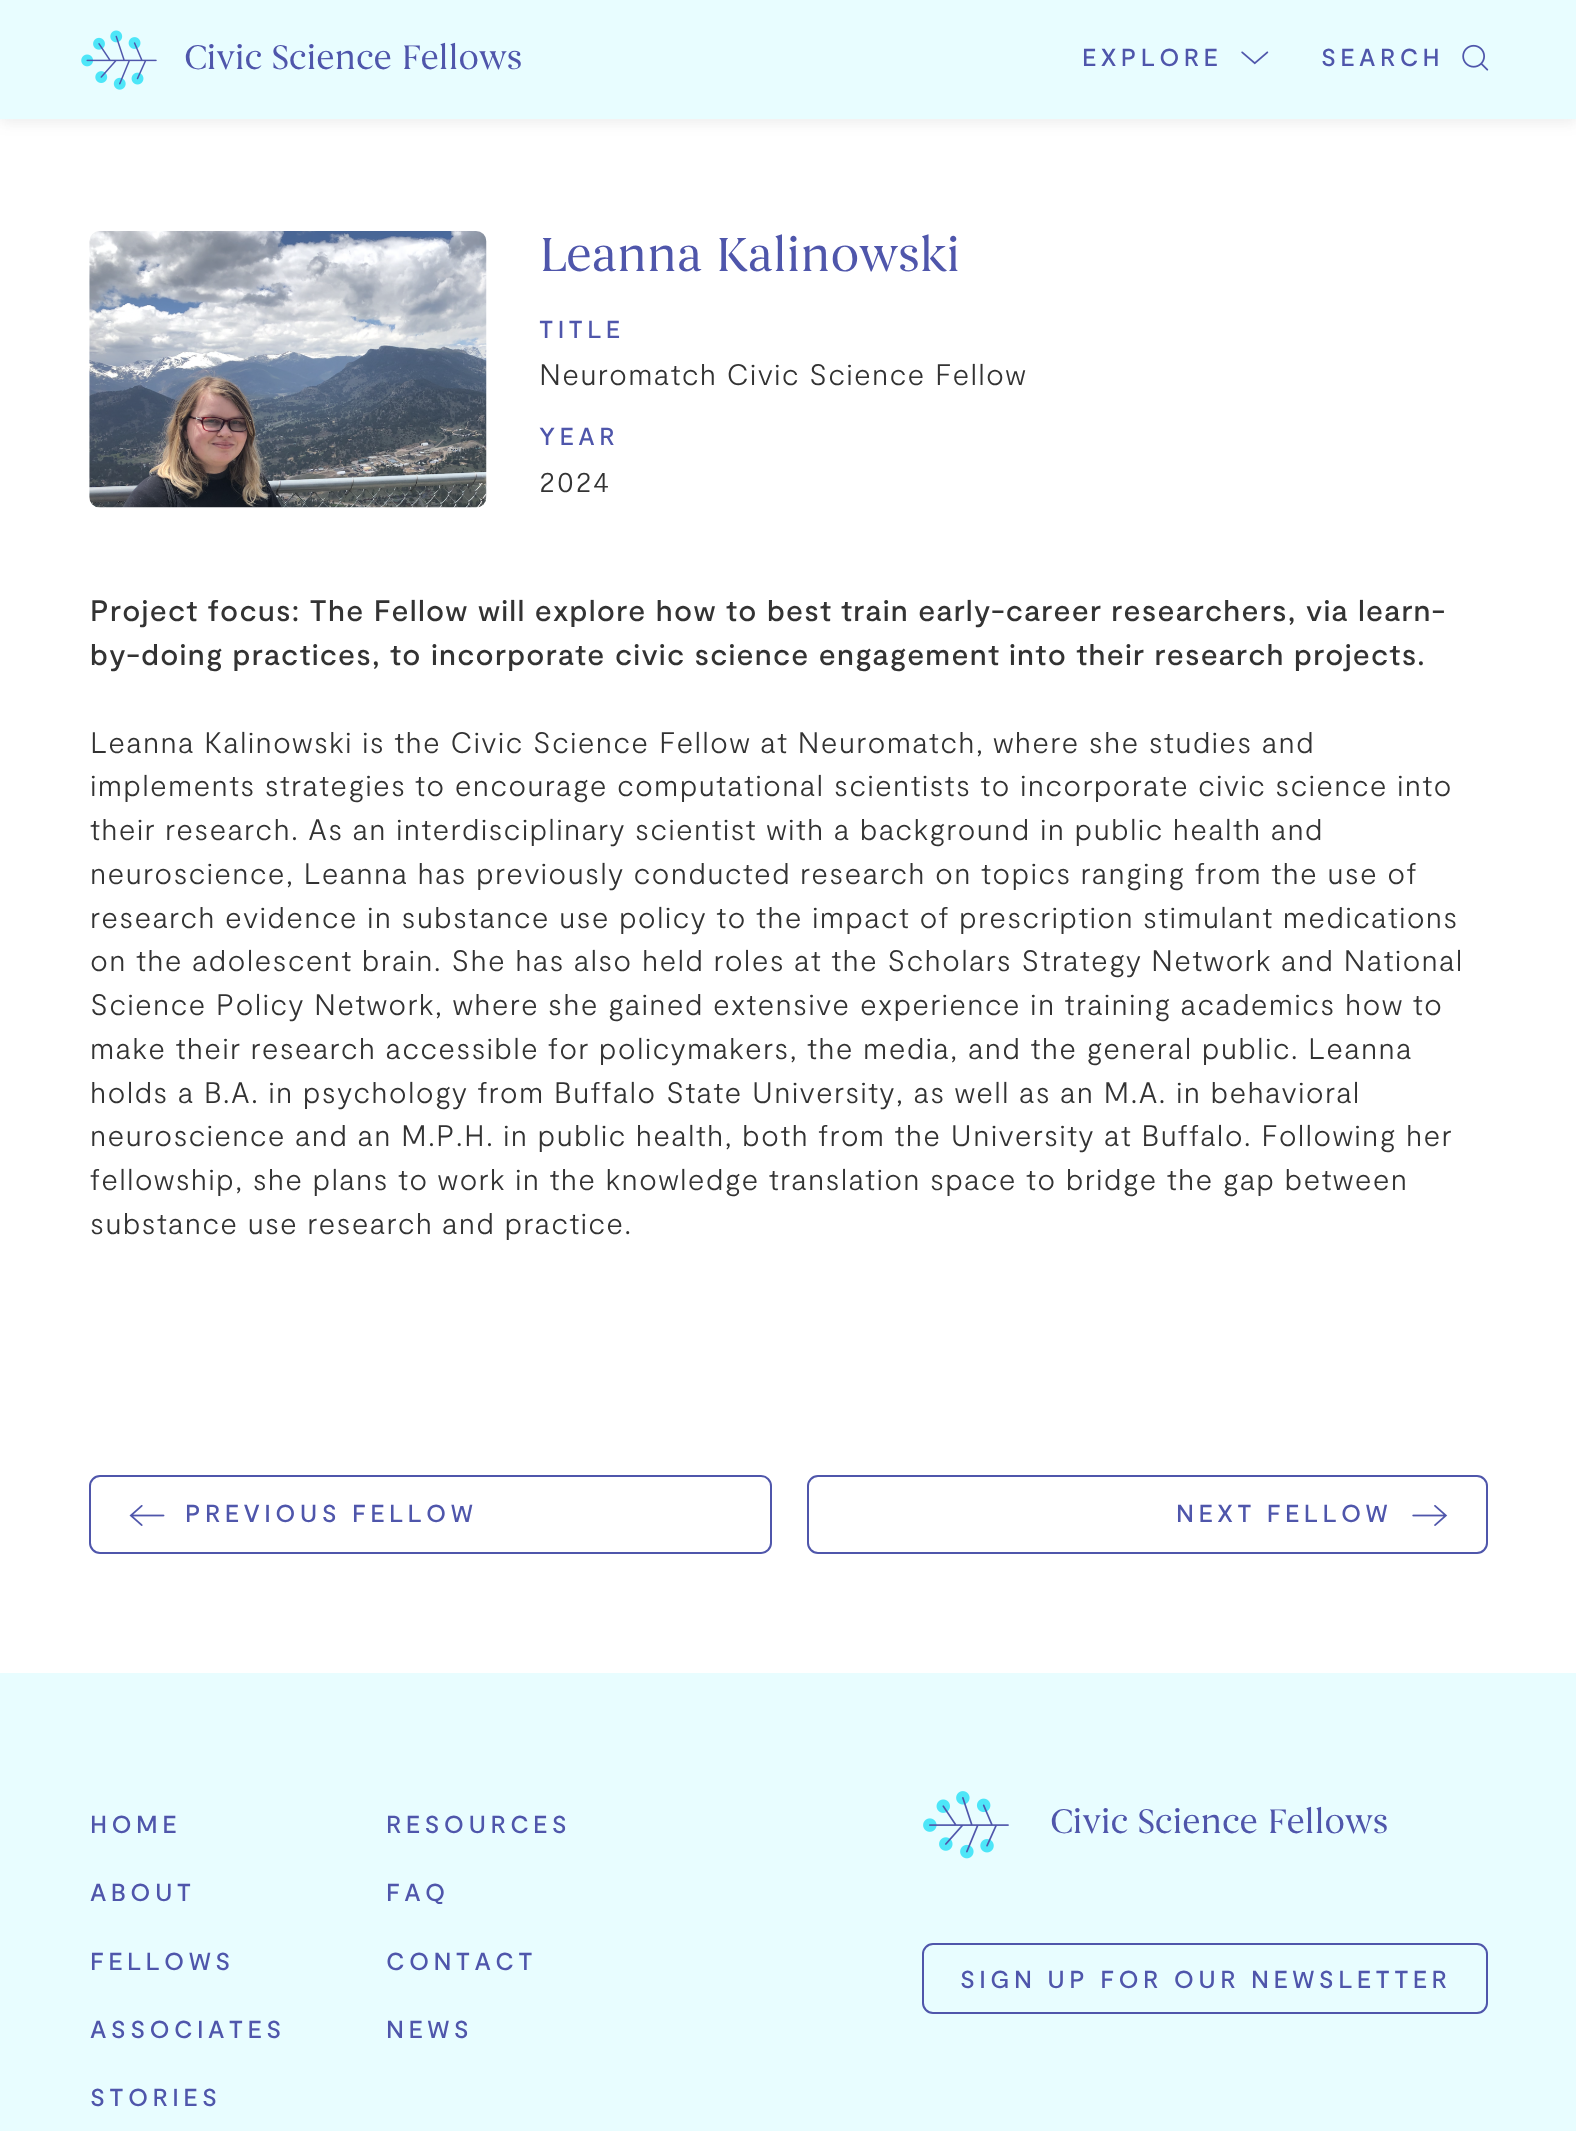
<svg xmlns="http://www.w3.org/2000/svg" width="1576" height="2131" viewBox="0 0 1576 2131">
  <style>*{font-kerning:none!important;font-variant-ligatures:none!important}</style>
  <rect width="100%" height="100%" fill="#fff"/>
  <path d="M0 4h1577v119H0z" fill="#4a4a4a1a" filter="blur(7px)"/>
  <path d="M0 0h1576v119H0z" fill="#e8fdff"/>
  <image x="81" y="30" width="76" height="60" href="img/1.png"/>
  <image x="1241" y="51" width="28" height="14" href="img/2.png"/>
  <image x="1462" y="44" width="27" height="27" href="img/3.png"/>
  <image x="89" y="231" width="398" height="277" href="img/4.png"/>
  <rect x="90" y="1476" width="681" height="77" rx="10" fill="none" stroke="#4f56ab" stroke-width="2"/>
  <image x="129" y="1505" width="36" height="21" href="img/5.png"/>
  <rect x="808" y="1476" width="679" height="77" rx="10" fill="none" stroke="#4f56ab" stroke-width="2"/>
  <image x="1412" y="1505" width="36" height="21" href="img/6.png"/>
  <path d="M0 1673h1576v458H0z" fill="#e8fdff"/>
  <image x="923" y="1791" width="86" height="68" href="img/7.png"/>
  <rect x="923" y="1944" width="564" height="69" rx="10" fill="none" stroke="#4f56ab" stroke-width="2"/>
  <text x="184" y="69" font-family="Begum" font-size="35" letter-spacing="-0.6" fill="#4f56ab">Civic Science Fellows</text>
  <g font-family="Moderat" font-size="24.5" font-weight="500" letter-spacing="4.4" fill="#4f56ab">
    <text x="1082" y="66">EXPLORE</text>
    <text x="1321" y="66">SEARCH</text>
  </g>
  <text x="539" y="271" font-family="Begum" font-size="49" letter-spacing="-0.9" fill="#4f56ab">Leanna Kalinowski</text>
  <text x="539" y="338" font-family="Moderat" font-size="24.5" font-weight="500" letter-spacing="4.4" fill="#4f56ab">TITLE</text>
  <text x="539" y="385" font-family="Moderat" font-size="29.75" font-weight="300" letter-spacing="1.22" fill="#333">Neuromatch Civic Science</text>
  <text x="935" y="385" font-family="Moderat" font-size="29.75" font-weight="300" letter-spacing="1.22" fill="#333">Fellow</text>
  <text x="539" y="445" font-family="Moderat" font-size="24.5" font-weight="500" letter-spacing="4.4" fill="#4f56ab">YEAR</text>
  <text x="539" y="492" font-family="Moderat" font-size="29.75" font-weight="300" letter-spacing="1.22" fill="#333">2024</text>
  <g font-family="Moderat" font-size="29.75" font-weight="500" letter-spacing="1.22" fill="#333">
    <text x="90" y="621">Project focus: The Fellow</text>
    <text x="478" y="621">will explore how to best</text>
    <text x="841" y="621">train early-career researchers,</text>
    <text x="1306" y="621">via learn-</text>
    <text x="90" y="665">by-doing practices, to incorporate</text>
    <text x="615" y="665">civic science engagement</text>
    <text x="1009" y="665">into their research projects.</text>
  </g>
  <g font-family="Moderat" font-size="29.75" font-weight="300" letter-spacing="1.22" fill="#333">
    <text x="90" y="753">Leanna Kalinowski is the Civic Science</text>
    <text x="659" y="753">Fellow at Neuromatch,</text>
    <text x="993" y="753">where she studies and</text>
    <text x="90" y="796">implements strategies</text>
    <text x="415" y="796">to encourage computational</text>
    <text x="834" y="796">scientists to incorporate</text>
    <text x="1198" y="796">civic science into</text>
    <text x="90" y="840">their research. As an interdisciplinary</text>
    <text x="635" y="840">scientist with a background</text>
    <text x="1040" y="840">in public health and</text>
    <text x="90" y="884">neuroscience, Leanna has</text>
    <text x="476" y="884">previously conducted</text>
    <text x="800" y="884">research on topics ranging</text>
    <text x="1195" y="884">from the use of</text>
    <text x="90" y="928">research evidence in substance</text>
    <text x="559" y="928">use policy to the impact of prescription</text>
    <text x="1143" y="928">stimulant medications</text>
    <text x="90" y="971">on the adolescent brain. She has also</text>
    <text x="642" y="971">held roles at the Scholars Strategy</text>
    <text x="1151" y="971">Network and National</text>
    <text x="90" y="1015">Science Policy Network, where</text>
    <text x="548" y="1015">she gained extensive</text>
    <text x="860" y="1015">experience in training academics</text>
    <text x="1345" y="1015">how to</text>
    <text x="90" y="1059">make their research accessible</text>
    <text x="548" y="1059">for policymakers, the media,</text>
    <text x="968" y="1059">and the general public. Leanna</text>
    <text x="90" y="1103">holds a B.A. in psychology from Buffalo</text>
    <text x="666" y="1103">State University, as well</text>
    <text x="1019" y="1103">as an M.A. in behavioral</text>
    <text x="90" y="1146">neuroscience and an M.P.H.</text>
    <text x="503" y="1146">in public health, both from the University</text>
    <text x="1104" y="1146">at Buffalo. Following</text>
    <text x="1406" y="1146">her</text>
    <text x="90" y="1190">fellowship, she plans to work</text>
    <text x="515" y="1190">in the knowledge translation</text>
    <text x="930" y="1190">space to bridge the gap between</text>
    <text x="90" y="1234">substance use research</text>
    <text x="442" y="1234">and practice.</text>
  </g>
  <g font-family="Moderat" font-size="24.5" font-weight="500" letter-spacing="4.4" fill="#4f56ab">
    <text x="185" y="1522">PREVIOUS FELLOW</text>
    <text x="1176" y="1522">NEXT FELLOW</text>
    <text x="90" y="1833">HOME</text>
    <text x="386" y="1833">RESOURCES</text>
    <text x="90" y="1901">ABOUT</text>
    <text x="386" y="1901">FAQ</text>
    <text x="90" y="1970">FELLOWS</text>
    <text x="386" y="1970">CONTACT</text>
    <text x="90" y="2038">ASSOCIATES</text>
    <text x="386" y="2038">NEWS</text>
    <text x="90" y="2106">STORIES</text>
  </g>
  <text x="1050" y="1833" font-family="Begum" font-size="35" letter-spacing="-0.6" fill="#4f56ab">Civic Science Fellows</text>
  <text x="960" y="1988" font-family="Moderat" font-size="24.5" font-weight="500" letter-spacing="4.4" fill="#4f56ab">SIGN UP FOR OUR NEWSLETTER</text>
</svg>
